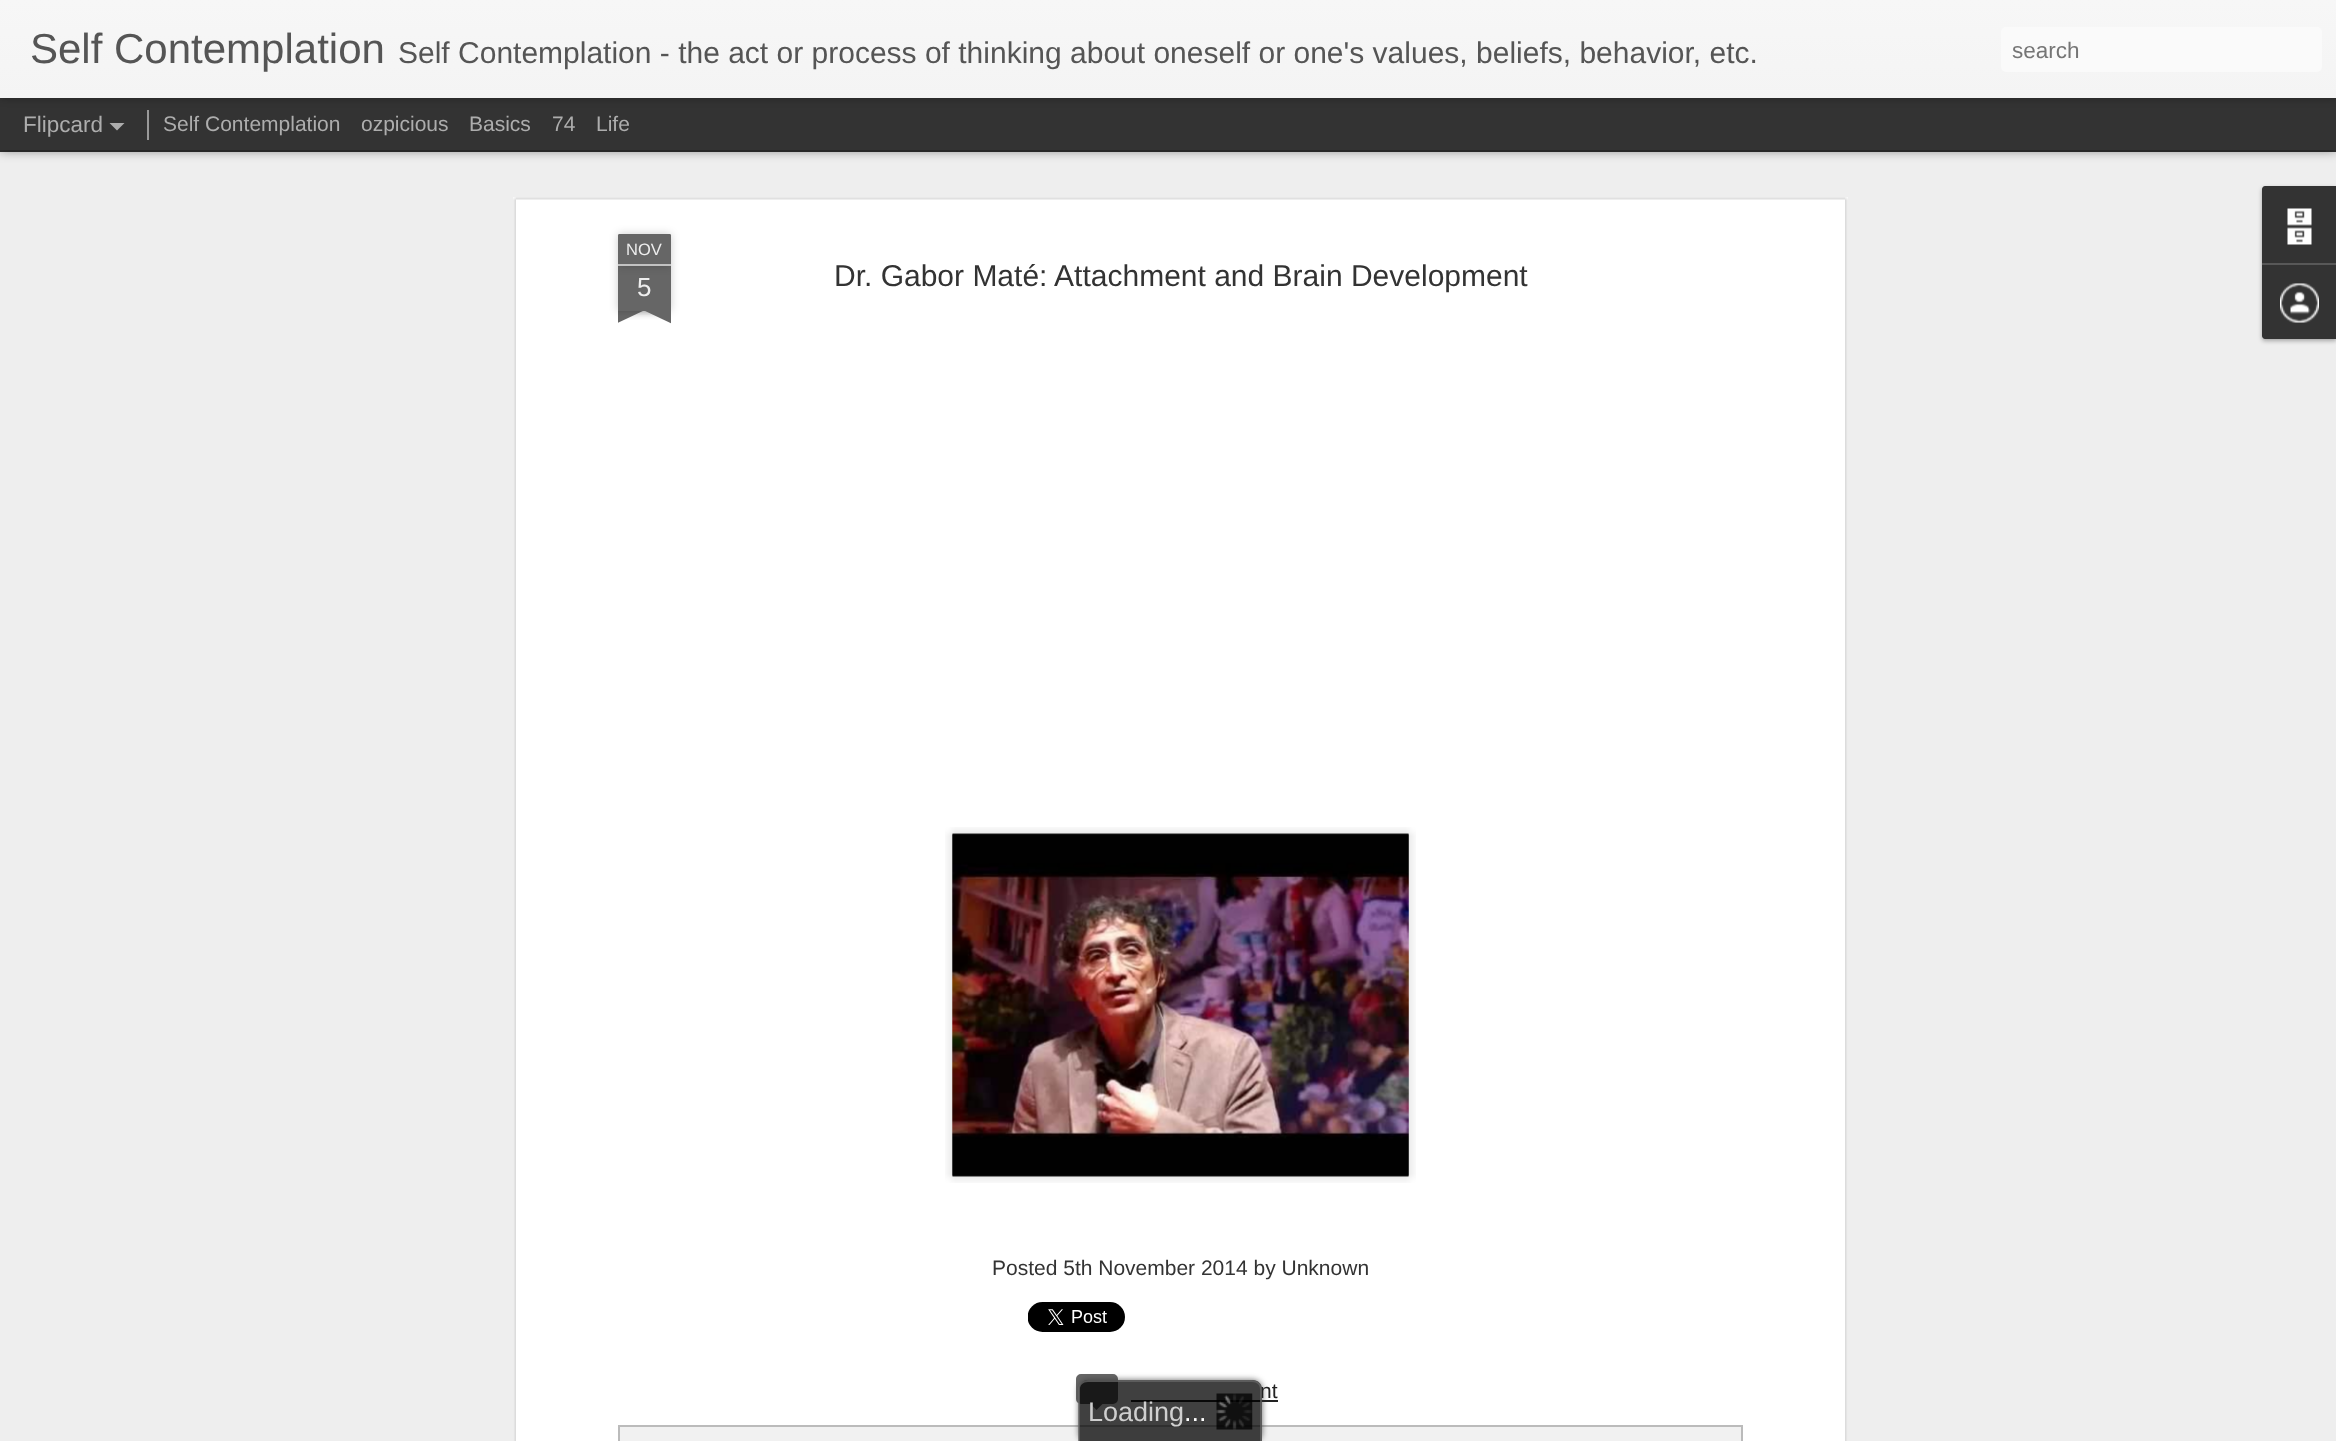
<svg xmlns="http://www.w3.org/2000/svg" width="2336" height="1441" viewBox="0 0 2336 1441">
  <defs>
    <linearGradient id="g1" gradientUnits="userSpaceOnUse" x1="0" y1="0" x2="0" y2="98"><stop offset="0" stop-color="#f7f7f7"/><stop offset="1" stop-color="#f4f4f4"/></linearGradient>
    <clipPath id="clip1"><path d="M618 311h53v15H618z"/></clipPath>
    <clipPath id="clip2"><path d="M618 311h53v15H618z"/></clipPath>
    <clipPath id="clip3"><path d="M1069 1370H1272V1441H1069ZM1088 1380H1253C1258 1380 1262 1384 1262 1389V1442H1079V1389C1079 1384 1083 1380 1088 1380Z" clip-rule="evenodd"/></clipPath>
  </defs>
  <rect width="100%" height="100%" fill="#333"/>
  <path d="M0 152h2336v1289H0z" fill="#eee"/>
  <path d="M0 98h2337v52H0z" fill="#00000080" filter="blur(6px)"/>
  <path d="M0 98h2336v52H0z" fill="#333"/>
  <path d="M147 110h2v30H147z" fill="#999"/>
  <path d="M0 0h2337v98H0z" fill="#0000004d" filter="blur(4px)"/>
  <path d="M0 0h2336v98H0z" fill="url(#g1)"/>
  <rect x="2001" y="27" width="321" height="45" rx="5" fill="#fafafa"/>
  <path d="M109.5 123H124.5L117 130.5Z" fill="#adadad"/>
  <path d="M513 197h1335v1244H513z" fill="#fff"/>
  <image x="513" y="197" width="1335" height="1244" href="img/1.png"/>
  <path d="M618 266h53v45H618z" fill="#00000033" filter="blur(4px)"/>
  <path d="M618 266h53v45H618z" fill="#666"/>
  <rect x="618" y="234" width="53" height="32" rx="1.5" fill="#00000033" filter="blur(4px)"/>
  <path d="M619.5 234H669.5C670.5 234 671 234.5 671 235.5V266H618V235.5C618 234.5 618.5 234 619.5 234Z" fill="#666"/>
  <path d="M618 264h53v2H618z" fill="#c2c2c2"/>
  <g clip-path="url(#clip1)">
    <path d="M605 296h75v15H605z" fill="#00000033" filter="blur(4px)"/>
  </g>
  <g clip-path="url(#clip2)">
    <path d="M605 312L673 280L679 294L611 326Z" fill="#666"/>
  </g>
  <g clip-path="url(#clip1)">
    <path d="M609 296h75v15H609z" fill="#00000033" filter="blur(4px)"/>
  </g>
  <g clip-path="url(#clip2)">
    <path d="M616 280L684 312L677 326L609 294Z" fill="#666"/>
  </g>
  <image x="945" y="827" width="471" height="356" href="img/2.png"/>
  <image x="952" y="833" width="457" height="344" href="img/3.png"/>
  <image x="1028" y="1302" width="97" height="30" href="img/4.png"/>
  <rect x="1077" y="1375" width="40" height="28" rx="4" fill="#666" stroke="#666" stroke-width="2"/>
  <path d="M1089 1402.5H1104L1096.5 1410Z" fill="#666"/>
  <path d="M1131 1400h147v2H1131z" fill="#222"/>
  <path d="M619 1426h1123v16H619z" fill="#f1f1f1" stroke="#bbb" stroke-width="2"/>
  <rect x="2262" y="188" width="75" height="153" rx="3" fill="#0000004d" filter="blur(2px)"/>
  <path d="M2265 186H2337V263H2262V189C2262 187.5 2263.5 186 2265 186Z" fill="#333"/>
  <image x="2287" y="208" width="25" height="37" href="img/5.png"/>
  <path d="M2262 263H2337V339H2265C2263.5 339 2262 337.5 2262 336Z" fill="#333"/>
  <path d="M2262 263h74v2H2262z" fill="#585858"/>
  <image x="2280" y="283" width="39" height="40" href="img/6.png"/>
  <g clip-path="url(#clip3)">
    <rect x="1079" y="1380" width="183" height="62" rx="9" fill="#333333bf" filter="blur(3px)"/>
  </g>
  <text x="30" y="63" font-family="Liberation Sans" font-size="42" fill="#555">Self Contemplation</text>
  <text x="398" y="63" font-family="Liberation Sans" font-size="30" fill="#555">Self Contemplation - the act or process of thinking about oneself or one's values, beliefs, behavior, etc.</text>
  <text x="2012" y="58" font-family="Liberation Sans" font-size="22.5" fill="#757575">search</text>
  <text x="23" y="132" font-family="Liberation Sans" font-size="22.5" fill="#adadad">Flipcard</text>
  <g font-family="Liberation Sans" font-size="21" fill="#adadad">
    <text x="163" y="131">Self Contemplation</text>
    <text x="361" y="131">ozpicious</text>
    <text x="469" y="131">Basics</text>
    <text x="552" y="131">74</text>
    <text x="596" y="131">Life</text>
  </g>
  <text x="626" y="255" font-family="Liberation Sans" font-size="16.5" fill="#eee">NOV</text>
  <text x="637" y="296" font-family="Liberation Sans" font-size="26" fill="#eee">5</text>
  <text x="834" y="286" font-family="Liberation Sans" font-size="30" fill="#333">Dr. Gabor Maté: Attachment and Brain Development</text>
  <text x="992" y="1275" font-family="Liberation Sans" font-size="21" fill="#333">Posted 5th November 2014 by Unknown</text>
  <text x="1260" y="1398" font-family="Liberation Sans" font-size="21" fill="#222">nt</text>
  <path d="M1088 1380H1253C1258 1380 1262 1384 1262 1389V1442H1079V1389C1079 1384 1083 1380 1088 1380Z" fill="#000000bf"/>
  <path d="M1088 1380H1252C1257 1380 1262 1384 1262 1389V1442H1078V1389C1078 1384 1083 1380 1088 1380ZM1088 1382H1252C1257 1382 1260 1385 1260 1389V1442H1080V1389C1080 1385 1083 1382 1088 1382Z" fill="#666666bf" fill-rule="evenodd"/>
  <image x="1216" y="1393" width="37" height="37" href="img/7.png"/>
  <text x="1088" y="1421" font-family="Liberation Sans" font-size="27" fill="#cfcfcf">Loading</text>
  <text x="1184" y="1421" font-family="Liberation Sans" font-size="27" fill="#fff">...</text>
</svg>
